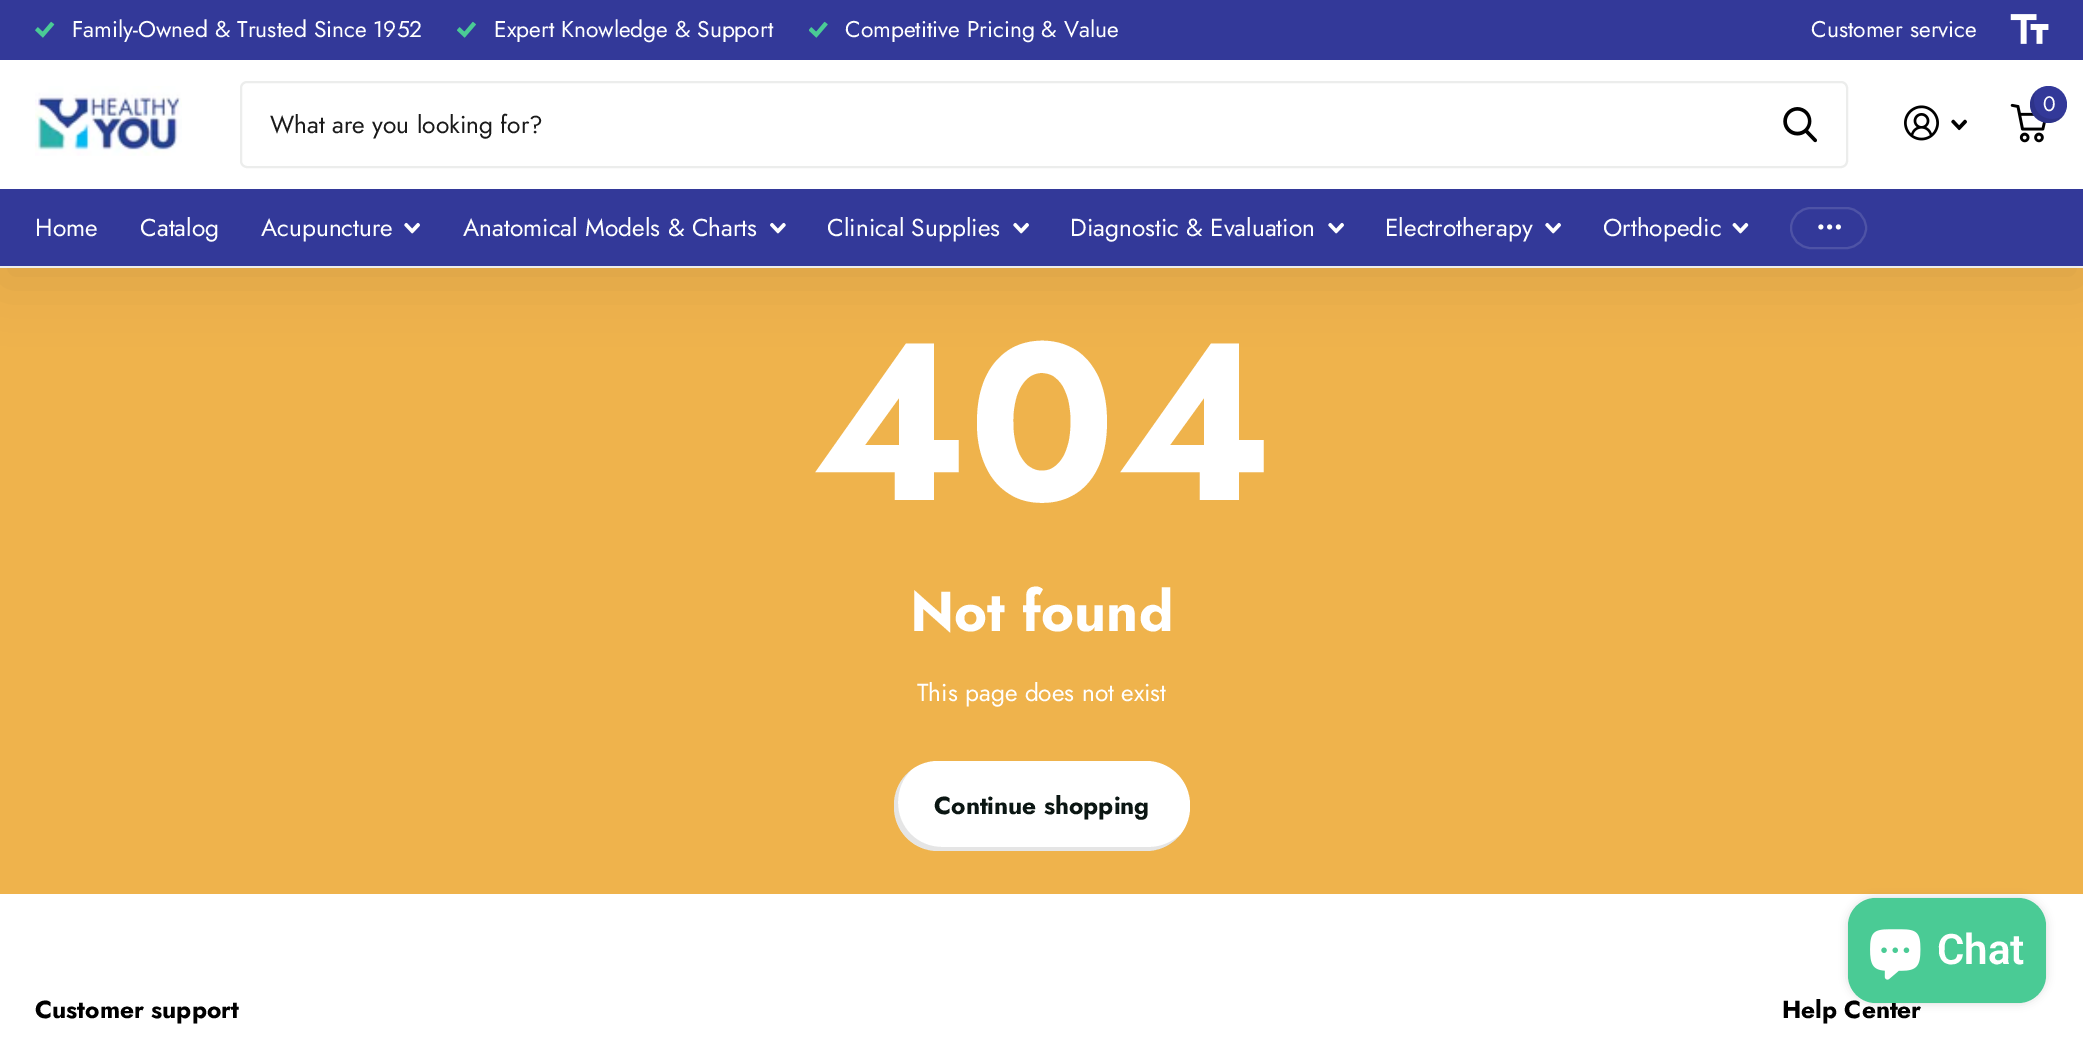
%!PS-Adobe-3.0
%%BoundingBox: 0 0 2083 1039
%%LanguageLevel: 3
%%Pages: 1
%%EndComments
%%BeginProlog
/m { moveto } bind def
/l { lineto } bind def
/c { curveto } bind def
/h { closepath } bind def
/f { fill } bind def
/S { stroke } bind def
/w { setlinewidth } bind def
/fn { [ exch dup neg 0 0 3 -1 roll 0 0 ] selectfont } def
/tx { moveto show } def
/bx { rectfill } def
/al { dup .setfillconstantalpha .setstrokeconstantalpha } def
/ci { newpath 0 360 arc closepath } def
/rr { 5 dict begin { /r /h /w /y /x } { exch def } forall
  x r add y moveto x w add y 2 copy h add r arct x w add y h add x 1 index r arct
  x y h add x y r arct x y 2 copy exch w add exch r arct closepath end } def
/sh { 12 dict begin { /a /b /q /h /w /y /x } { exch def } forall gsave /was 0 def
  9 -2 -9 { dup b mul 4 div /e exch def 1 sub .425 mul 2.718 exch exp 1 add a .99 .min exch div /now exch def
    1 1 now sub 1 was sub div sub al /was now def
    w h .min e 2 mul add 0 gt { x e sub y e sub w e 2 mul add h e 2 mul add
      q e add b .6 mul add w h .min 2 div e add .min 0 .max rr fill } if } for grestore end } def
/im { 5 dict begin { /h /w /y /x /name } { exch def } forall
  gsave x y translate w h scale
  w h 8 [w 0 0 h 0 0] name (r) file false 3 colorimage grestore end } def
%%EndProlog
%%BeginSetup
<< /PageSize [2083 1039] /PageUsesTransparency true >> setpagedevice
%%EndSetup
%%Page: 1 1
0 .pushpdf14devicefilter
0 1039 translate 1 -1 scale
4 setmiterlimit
0.937 0.702 0.298 setrgbcolor
0 0 2083 1039 bx
0 setgray
0 16 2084 268 0 28 0.07 sh
1 setgray
0 60 2083 129 bx
0.925 0.929 0.925 setrgbcolor
0 266 2083 2 bx
0.2 0.224 0.6 setrgbcolor
0 0 2083 60 bx
(image0.raw) 35 21 20 17 im
/Jost-Regular 22.75 fn
1 setgray
(Family-Owned & Trusted Since 1952) 72 37 tx
(image1.raw) 457 21 19 17 im
(Expert Knowledge & Support) 494 37 tx
(image2.raw) 809 21 19 17 im
(Competitive Pricing & Value) 845 37 tx
(Customer service) 1811 37 tx
(image3.raw) 2010 14 39 30 im
(image4.raw) 35 86 147 70 im
(image5.raw) 1904 105 35 36 im
(image6.raw) 1951 119 16 12 im
(image7.raw) 2010 103 36 40 im
0.2 0.224 0.6 setrgbcolor
2048.5 104.5 18.5 ci f
0.1 al
0 setgray
2064 115 m 2061 117.5 2057 119 2052 119 c 2035.5 119 2030 101 2036.5 90 c 2028.5 97 2028 110 2035.5 117.5 c 2043.5 125.5 2057.5 124.5 2064 115 c h f
/Jost-Regular 21 fn
1 al
1 setgray
(0) 2043 111 tx
0.925 0.929 0.925 setrgbcolor
2 w
241 82 1606 85 6 rr S
/Jost-Regular 24.5 fn
0.102 setgray
(What are you looking for?) 270 133 tx
(image8.raw) 1783 107 34 36 im
0.2 0.224 0.6 setrgbcolor
0 189 2083 77 bx
1 setgray
(Home) 35 236 tx
(Catalog) 140 236 tx
(Acupuncture) 261 236 tx
(image9.raw) 404 222 16 12 im
(Anatomical Models & Charts) 463 236 tx
(image10.raw) 770 222 16 12 im
(Clinical Supplies) 827 236 tx
(image9.raw) 1013 222 16 12 im
(Diagnostic & Evaluation) 1070 236 tx
(image9.raw) 1328 222 16 12 im
(Electrotherapy) 1385 236 tx
(image9.raw) 1545 222 16 12 im
(Orthopedic) 1603 236 tx
(image11.raw) 1732 222 17 12 im
0.306 0.325 0.651 setrgbcolor
1791 208 75 40 20 rr S
(image12.raw) 1818 224 23 6 im
/Jost-Bold 224 fn
1 setgray
(404) 812 500 tx
/Jost-Bold 56 fn
(Not found) 910 631 tx
/Jost-Regular 24.5 fn
(This page does not exist) 917 701 tx
894 761 296 90 44 rr f
0.1 al
0 setgray
911 770 m 901 778 894 791 894 805 c 894 807 l 894 831 914 851 938 851 c 1146 851 l 1160 851 1172 845 1180 835 c 1172 842 1161 847 1150 847 c 942 847 l 917 847 898 827 898 803 c 898 802 l 898 789 903 778 911 770 c h f
/Jost-Bold 24.5 fn
1 al
0.043 0.086 0.075 setrgbcolor
(Continue shopping) 934 814 tx
1 setgray
0 894 2083 145 bx
0 setgray
(Customer support) 35 1018 tx
(Help Center) 1782 1018 tx
1848 898 198 105 28 4.5 0.15 sh
0.29 0.796 0.584 setrgbcolor
1848 898 198 105 28 rr f
(image13.raw) 1870 929 51 51 im
/Roboto-SemiBold 42 fn
1 setgray
(Chat) 1937 964 tx
.poppdf14devicefilter showpage
%%EOF
